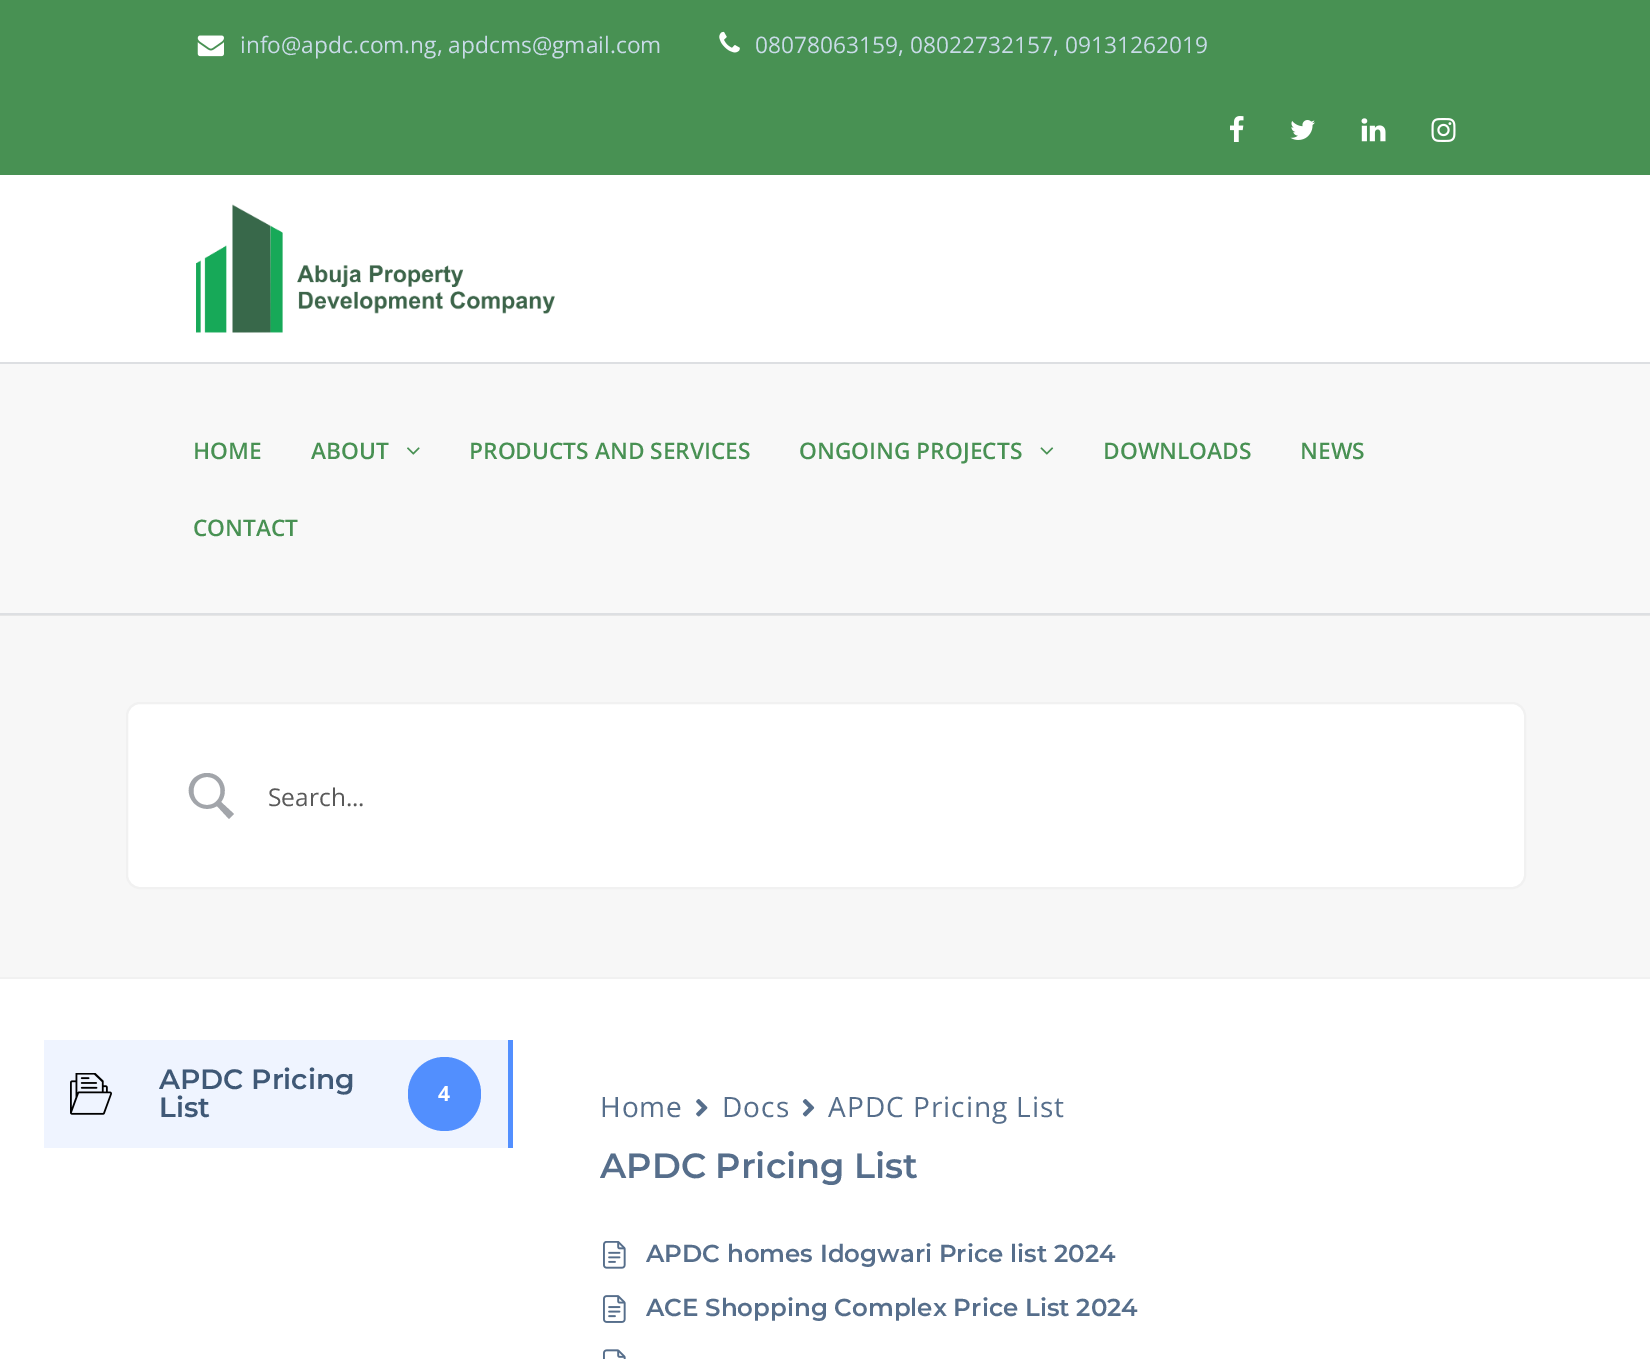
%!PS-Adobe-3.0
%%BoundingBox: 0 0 1650 1359
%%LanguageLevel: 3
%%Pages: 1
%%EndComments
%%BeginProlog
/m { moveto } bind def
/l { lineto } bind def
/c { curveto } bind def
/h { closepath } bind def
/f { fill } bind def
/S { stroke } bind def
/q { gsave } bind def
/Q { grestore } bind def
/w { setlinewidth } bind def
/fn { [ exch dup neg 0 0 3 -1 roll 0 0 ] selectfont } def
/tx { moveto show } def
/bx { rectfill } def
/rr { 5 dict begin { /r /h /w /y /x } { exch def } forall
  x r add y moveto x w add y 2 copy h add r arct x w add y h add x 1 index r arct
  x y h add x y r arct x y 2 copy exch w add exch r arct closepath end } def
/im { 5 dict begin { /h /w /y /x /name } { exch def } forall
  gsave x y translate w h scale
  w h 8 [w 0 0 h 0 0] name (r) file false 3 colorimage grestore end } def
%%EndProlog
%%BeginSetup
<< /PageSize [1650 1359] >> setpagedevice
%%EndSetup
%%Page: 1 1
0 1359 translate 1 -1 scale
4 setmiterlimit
1 setgray
0 0 1650 1359 bx
0.282 0.569 0.325 setrgbcolor
0 0 1650 175 bx
(image0.raw) 197 35 27 22 im
/OpenSans-Regular 22.75 fn
0.788 0.859 0.91 setrgbcolor
(info@apdc.com.ng, apdcms@gmail.com) 240 53 tx
(image1.raw) 719 31 21 22 im
(08078063159, 08022732157, 09131262019) 755 53 tx
(image2.raw) 1230 116 14 26 im
(image3.raw) 1290 120 25 20 im
(image4.raw) 1361 118 25 24 im
(image5.raw) 1431 118 25 24 im
0.902 setgray
0 615 1650 1 bx
(image6.raw) 196 204 359 129 im
0.973 setgray
0 364 1650 249 bx
0.867 0.875 0.886 setrgbcolor
0 362 1650 2 bx
0 613 1650 2 bx
/OpenSans-SemiBold 22.75 fn
0.282 0.569 0.325 setrgbcolor
(HOME) 193 459 tx
(ABOUT) 311 459 tx
(image7.raw) 407 447 13 8 im
(PRODUCTS AND SERVICES) 469 459 tx
(ONGOING PROJECTS) 799 459 tx
(image8.raw) 1040 447 14 8 im
(DOWNLOADS) 1103 459 tx
(NEWS) 1300 459 tx
(CONTACT) 193 536 tx
0.969 setgray
0 616 1650 361 bx
0.945 setgray
0 977 1650 2 bx
1 setgray
127 703 1398 185 13 rr q f Q
0.945 setgray
2 w
S
0.635 0.647 0.667 setrgbcolor
207 773 m 202 773 198 775 194 778 c 179 794 199 817 217 806 c 229 819 l 234 814 l 221 802 l 230 790 222 773 207 773 c h 207 777 m 225 777 225 805 207 805 c 189 805 189 777 207 777 c h f
/OpenSans-Regular 24.5 fn
0.349 setgray
(Search...) 268 806 tx
0.937 0.957 1 setrgbcolor
44 1040 464 108 bx
0.322 0.561 1 setrgbcolor
508 1040 5 108 bx
(image9.raw) 70 1073 42 42 im
/Montserrat-SemiBold 28 fn
0.247 0.345 0.463 setrgbcolor
(APDC Pricing) 159 1089 tx
(List) 159 1117 tx
0.322 0.561 0.996 setrgbcolor
408 1057 73 74 36.5 rr f
/OpenSans-Bold 21 fn
1 setgray
(4) 438 1101 tx
/OpenSans-Regular 28 fn
0.337 0.431 0.545 setrgbcolor
600 1117 m 1 0 (Home) ashow
(image10.raw) 696 1099 12 18 im
722 1117 m 1 0 (Docs) ashow
(image11.raw) 802 1099 13 18 im
828 1117 m 1 0 (APDC Pricing List) ashow
/Montserrat-SemiBold 35 fn
(APDC Pricing List) 600 1178 tx
(image12.raw) 603 1241 23 28 im
/Montserrat-SemiBold 24.5 fn
(APDC homes Idogwari Price list 2024) 646 1262 tx
(image13.raw) 603 1295 23 28 im
(ACE Shopping Complex Price List 2024) 646 1316 tx
(image14.raw) 603 1349 23 10 im
showpage
%%EOF
